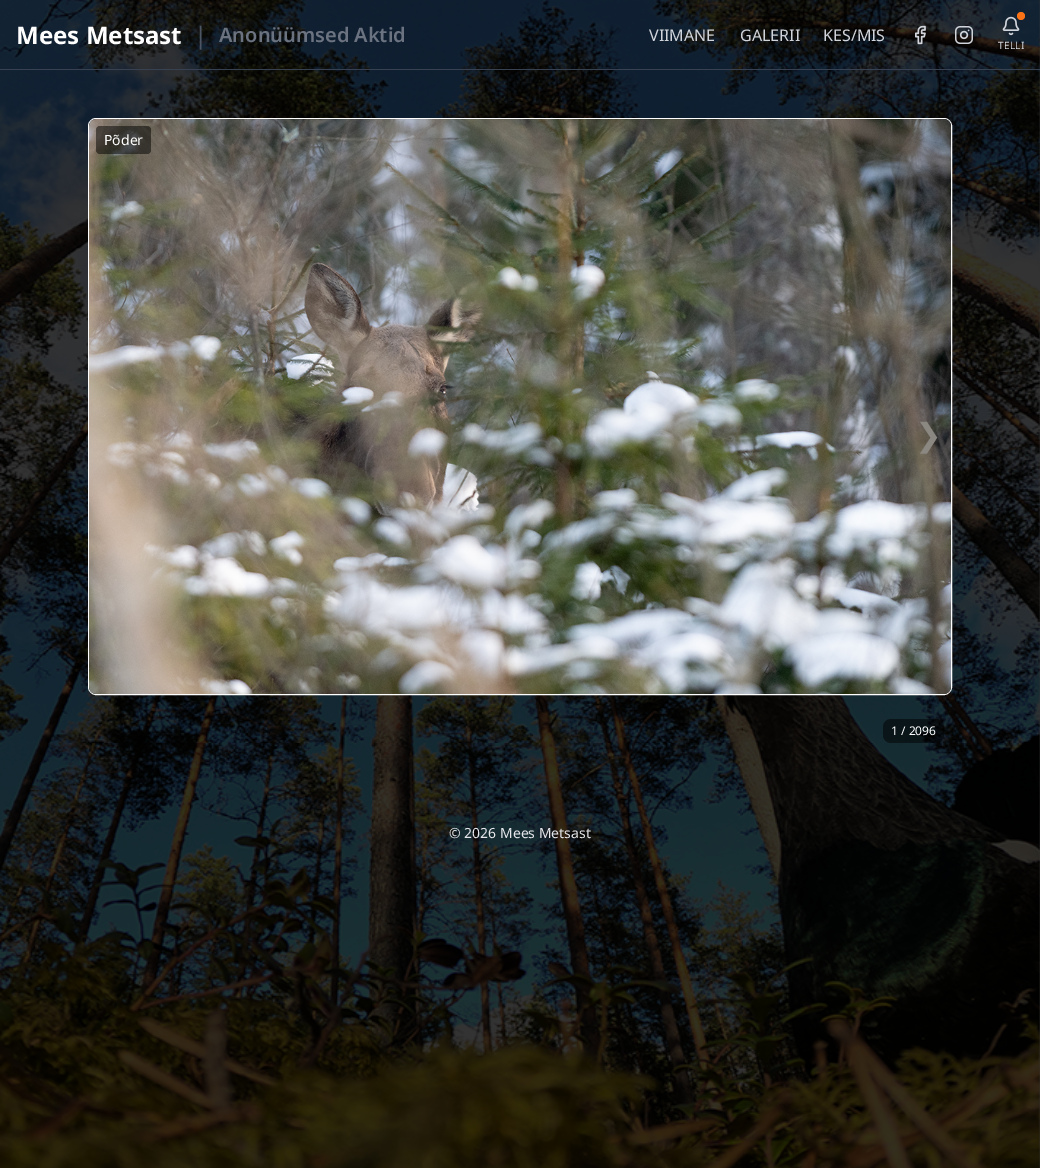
%!PS-Adobe-3.0
%%BoundingBox: 0 0 1040 1168
%%LanguageLevel: 3
%%Pages: 1
%%EndComments
%%BeginProlog
/m { moveto } bind def
/f { fill } bind def
/S { stroke } bind def
/fn { [ exch dup neg 0 0 3 -1 roll 0 0 ] selectfont } def
/tx { moveto show } def
/bx { rectfill } def
/al { dup .setfillconstantalpha .setstrokeconstantalpha } def
/ci { newpath 0 360 arc closepath } def
/rr { 5 dict begin { /r /h /w /y /x } { exch def } forall
  x r add y moveto x w add y 2 copy h add r arct x w add y h add x 1 index r arct
  x y h add x y r arct x y 2 copy exch w add exch r arct closepath end } def
/im { 5 dict begin { /h /w /y /x /name } { exch def } forall
  gsave x y translate w h scale
  w h 8 [w 0 0 h 0 0] name (r) file false 3 colorimage grestore end } def
%%EndProlog
%%BeginSetup
<< /PageSize [1040 1168] /PageUsesTransparency true >> setpagedevice
%%EndSetup
%%Page: 1 1
0 .pushpdf14devicefilter
0 1168 translate 1 -1 scale
4 setmiterlimit
1 setgray
0 0 1040 1168 bx
(image0.raw) 0 0 1040 1168 im
0.216 0.255 0.318 setrgbcolor
0 69 1040 1 bx
/NotoSans-Bold 24 fn
1 setgray
(Mees Metsast) 16 44 tx
/NotoSans-Regular 24 fn
0.294 0.333 0.388 setrgbcolor
(|) 194 44 tx
/NotoSans-SemiBold 20 fn
0.42 0.447 0.502 setrgbcolor
(Anonüümsed Aktid) 219 42 tx
/NotoSans-Regular 16 fn
0.82 0.835 0.859 setrgbcolor
(VIIMANE) 649 41 tx
(GALERII) 740 41 tx
(KES/MIS) 823 41 tx
(image1.raw) 915 25 11 20 im
(image2.raw) 955 26 18 18 im
(image3.raw) 1002 16 18 20 im
0.976 0.451 0.086 setrgbcolor
1021 16 4 ci f
/NotoSans-Regular 10 fn
0.82 0.835 0.859 setrgbcolor
998 49 m 0.25 0 (TELLI) ashow
1 setgray
88.5 118.5 863 576 7.5 rr S
(image4.raw) 89 119 862 575 im
0.5 al
0 setgray
96 126 55 28 4 rr f
/NotoSans-Regular 14 fn
1 al
1 setgray
(Põder) 104 145 tx
0.5 al
0 setgray
883 719 61 24 8 rr f
/NotoSans-Regular 12 fn
1 al
1 setgray
(1 / 2096) 891 735 tx
/DejaVuSans-Regular 32 fn
0.545 0.529 0.506 setrgbcolor
(❯) 915 446 tx
/NotoSans-Regular 14 fn
0.898 0.906 0.922 setrgbcolor
(© 2026 Mees Metsast) 449 838 tx
.poppdf14devicefilter showpage
%%EOF
